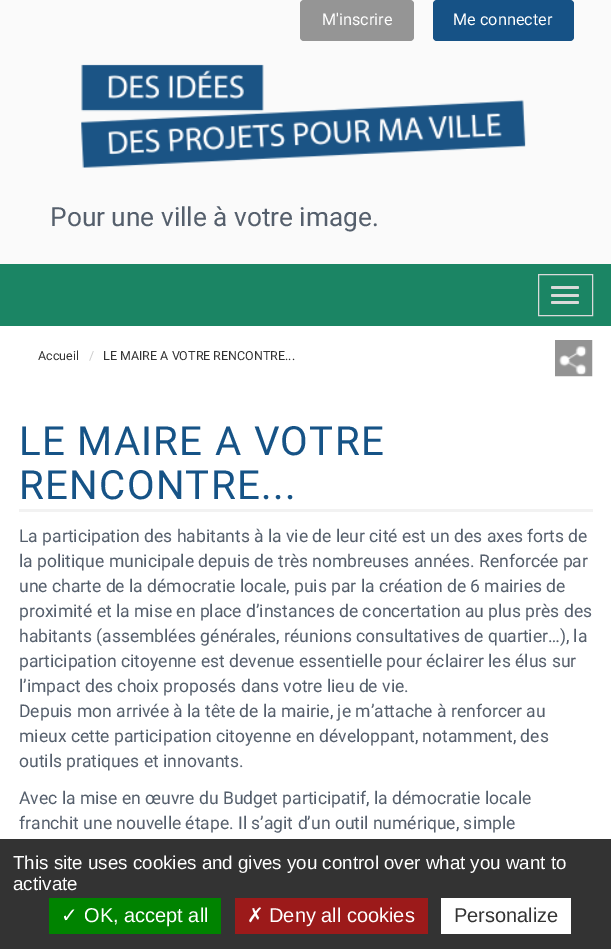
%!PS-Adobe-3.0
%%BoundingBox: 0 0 611 949
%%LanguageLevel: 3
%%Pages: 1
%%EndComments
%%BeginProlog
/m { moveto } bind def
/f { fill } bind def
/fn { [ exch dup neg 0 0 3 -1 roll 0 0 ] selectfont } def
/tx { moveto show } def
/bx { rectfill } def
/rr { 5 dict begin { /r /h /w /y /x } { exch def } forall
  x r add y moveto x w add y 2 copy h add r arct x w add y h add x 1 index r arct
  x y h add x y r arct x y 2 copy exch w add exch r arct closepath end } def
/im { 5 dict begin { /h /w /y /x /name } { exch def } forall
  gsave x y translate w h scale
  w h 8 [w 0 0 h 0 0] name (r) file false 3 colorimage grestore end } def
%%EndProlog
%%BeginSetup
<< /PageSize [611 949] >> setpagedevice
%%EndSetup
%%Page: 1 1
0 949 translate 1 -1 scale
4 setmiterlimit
1 setgray
0 0 611 949 bx
0.98 setgray
0 0 611 264 bx
0.584 setgray
300 0 114 41 4 rr f
/Roboto-Regular 16.25 fn
1 setgray
(M'inscrire) 322 25 tx
0.086 0.322 0.525 setrgbcolor
433 0 141 41 4 rr f
1 setgray
(Me connecter) 453 25 tx
(image0.raw) 81 64 445 104 im
/Roboto-Regular 26.25 fn
0.333 0.373 0.424 setrgbcolor
(Pour une ville à votre image.) 50 226 tx
0.106 0.522 0.392 setrgbcolor
0 264 611 62 bx
0.855 setgray
538.5 274.5 54 41 rectstroke
551 286 28 3 1.5 rr f
551 294 28 3 1.5 rr f
551 301 28 3 1.5 rr f
/Roboto-Regular 12.5 fn
0.2 setgray
(Accueil) 38 360 tx
0.8 setgray
(/) 89 360 tx
0.2 setgray
(LE MAIRE A VOTRE RENCONTRE...) 103 360 tx
(image1.raw) 555 340 38 37 im
0.949 setgray
19 509 574 3 bx
/Roboto-Regular 40.25 fn
0.086 0.325 0.525 setrgbcolor
19 455 m 1.25 0 (LE MAIRE A VOTRE) ashow
19 499 m 1.25 0 (RENCONTRE...) ashow
/Roboto-Regular 17.5 fn
0.333 0.373 0.424 setrgbcolor
(La participation des habitants à la vie de leur cité est un des axes forts de) 19 542 tx
(la politique municipale depuis de très nombreuses années. Renforcée par) 19 567 tx
(une charte de la démocratie locale, puis par la création de 6 mairies de) 19 592 tx
(proximité et la mise en place d’instances de concertation au plus près des) 19 617 tx
(habitants \(assemblées générales, réunions consultatives de quartier…\), la) 19 642 tx
(participation citoyenne est devenue essentielle pour éclairer les élus sur) 19 667 tx
(l’impact des choix proposés dans votre lieu de vie.) 19 692 tx
(Depuis mon arrivée à la tête de la mairie, je m’attache à renforcer au) 19 717 tx
(mieux cette participation citoyenne en développant, notamment, des) 19 742 tx
(outils pratiques et innovants.) 19 767 tx
(Avec la mise en œuvre du Budget participatif, la démocratie locale) 19 804 tx
(franchit une nouvelle étape. Il s’agit d’un outil numérique, simple) 19 829 tx
0.2 setgray
0 839 611 110 bx
/LiberationSans-Regular 18.75 fn
1 setgray
(This site uses cookies and gives you control over what you want to) 13 869 tx
(activate) 13 890 tx
0 0.514 0 setrgbcolor
49 898 172 36 bx
/DejaVuSans-Regular 20 fn
1 setgray
(✓) 61 922 tx
/LiberationSans-Regular 20 fn
(OK, accept all) 84 922 tx
0.612 0.102 0.102 setrgbcolor
235 898 193 36 bx
/DejaVuSans-Regular 20 fn
1 setgray
(✗) 247 922 tx
/LiberationSans-Regular 20 fn
(Deny all cookies) 269 922 tx
441 898 130 36 bx
0.2 setgray
(Personalize) 454 922 tx
showpage
%%EOF
